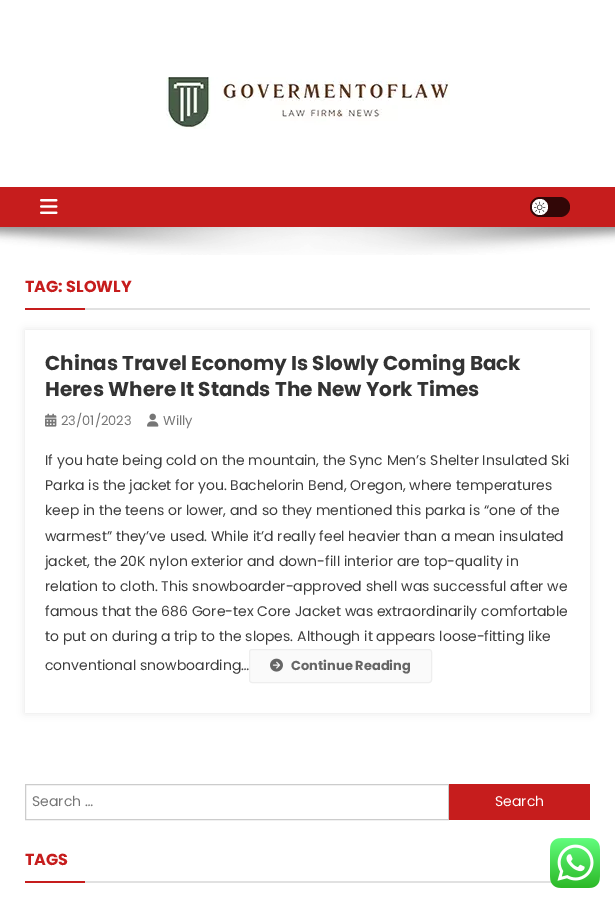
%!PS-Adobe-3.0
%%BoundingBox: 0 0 615 903
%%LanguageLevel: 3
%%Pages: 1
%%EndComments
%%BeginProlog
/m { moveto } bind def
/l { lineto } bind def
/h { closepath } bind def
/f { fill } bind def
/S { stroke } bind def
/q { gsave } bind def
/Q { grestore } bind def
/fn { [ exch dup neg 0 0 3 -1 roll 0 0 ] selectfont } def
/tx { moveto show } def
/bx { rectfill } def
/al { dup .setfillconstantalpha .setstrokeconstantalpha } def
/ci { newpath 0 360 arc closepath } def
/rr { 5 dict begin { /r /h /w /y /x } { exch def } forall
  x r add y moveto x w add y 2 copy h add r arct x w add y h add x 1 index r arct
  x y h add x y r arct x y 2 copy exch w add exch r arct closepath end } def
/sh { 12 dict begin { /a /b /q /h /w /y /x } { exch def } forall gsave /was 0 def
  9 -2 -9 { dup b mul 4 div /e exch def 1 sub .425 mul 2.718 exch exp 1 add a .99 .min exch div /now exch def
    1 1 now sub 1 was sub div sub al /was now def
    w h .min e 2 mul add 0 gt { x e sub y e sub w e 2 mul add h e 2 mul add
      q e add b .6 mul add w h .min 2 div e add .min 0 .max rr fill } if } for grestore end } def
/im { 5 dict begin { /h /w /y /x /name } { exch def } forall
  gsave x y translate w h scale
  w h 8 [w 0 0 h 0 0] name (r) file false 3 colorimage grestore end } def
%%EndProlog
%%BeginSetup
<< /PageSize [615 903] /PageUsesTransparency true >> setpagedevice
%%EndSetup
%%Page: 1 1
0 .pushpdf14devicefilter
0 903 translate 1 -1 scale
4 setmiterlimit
1 setgray
0 0 615 903 bx
(image0.raw) 166 77 284 52 im
0.776 0.114 0.114 setrgbcolor
0 187 615 40 bx
(image1.raw) 40 199 18 15 im
0.196 0.027 0.027 setrgbcolor
530 197 40 20 10 rr f
1 setgray
540 207 8 ci f
(image2.raw) 534 201 12 12 im
(image3.raw) 0 227 615 28 im
0.882 setgray
85 308 505 2 bx
/Poppins-Bold 16 fn
0.776 0.114 0.114 setrgbcolor
(TAG: SLOWLY) 25 292 tx
25 308 60 2 bx
q
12 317 m 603 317 l 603 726 l 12 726 l h 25 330 m 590 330 l 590 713 l 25 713 l h eoclip newpath
0 setgray
25 330 565 383 0 4 0.1 sh
Q
/Poppins-Bold 20 fn
0.2 setgray
(Chinas Travel Economy Is Slowly Coming Back) 45 370 tx
(Heres Where It Stands The New York Times) 45 396 tx
(image4.raw) 45 413 12 14 im
/Poppins-Regular 13 fn
0.463 setgray
(23/01/2023) 61 425 tx
(image5.raw) 147 413 12 14 im
(Willy) 163 425 tx
/Poppins-Regular 14 fn
0.239 setgray
(If you hate being cold on the mountain, the Sync Men’s Shelter Insulated Ski) 45 465 tx
(Parka is the jacket for you. Bachelorin Bend, Oregon, where temperatures) 45 490 tx
(keep in the teens or lower, and so they mentioned this parka is “one of the) 45 515 tx
(warmest” they’ve used. While it’d really feel heavier than a mean insulated) 45 541 tx
(jacket, the 20K nylon exterior and down-fill interior are top-quality in) 45 566 tx
(relation to cloth. This snowboarder-approved shell was successful after we) 45 591 tx
(famous that the 686 Gore-tex Core Jacket was extraordinarily comfortable) 45 616 tx
(to put on during a trip to the slopes. Although it appears loose-fitting like) 45 641 tx
(conventional snowboarding…) 45 670 tx
0.98 setgray
249.5 649.5 182 33 2.5 rr q f Q
0.933 setgray
S
(image6.raw) 270 658 13 14 im
/Poppins-Bold 13 fn
0.4 setgray
(Continue Reading) 291 670 tx
0.8 setgray
25.5 784.5 423 35 rectstroke
/Poppins-Regular 14 fn
0.463 setgray
(Search …) 32 806 tx
0.776 0.114 0.114 setrgbcolor
449 784 141 36 bx
1 setgray
(Search) 495 806 tx
0.882 setgray
85 881 467 2 bx
/Poppins-Bold 16 fn
0.776 0.114 0.114 setrgbcolor
(TAGS) 25 865 tx
25 881 60 2 bx
(image7.raw) 550 838 50 50 im
.poppdf14devicefilter showpage
%%EOF
